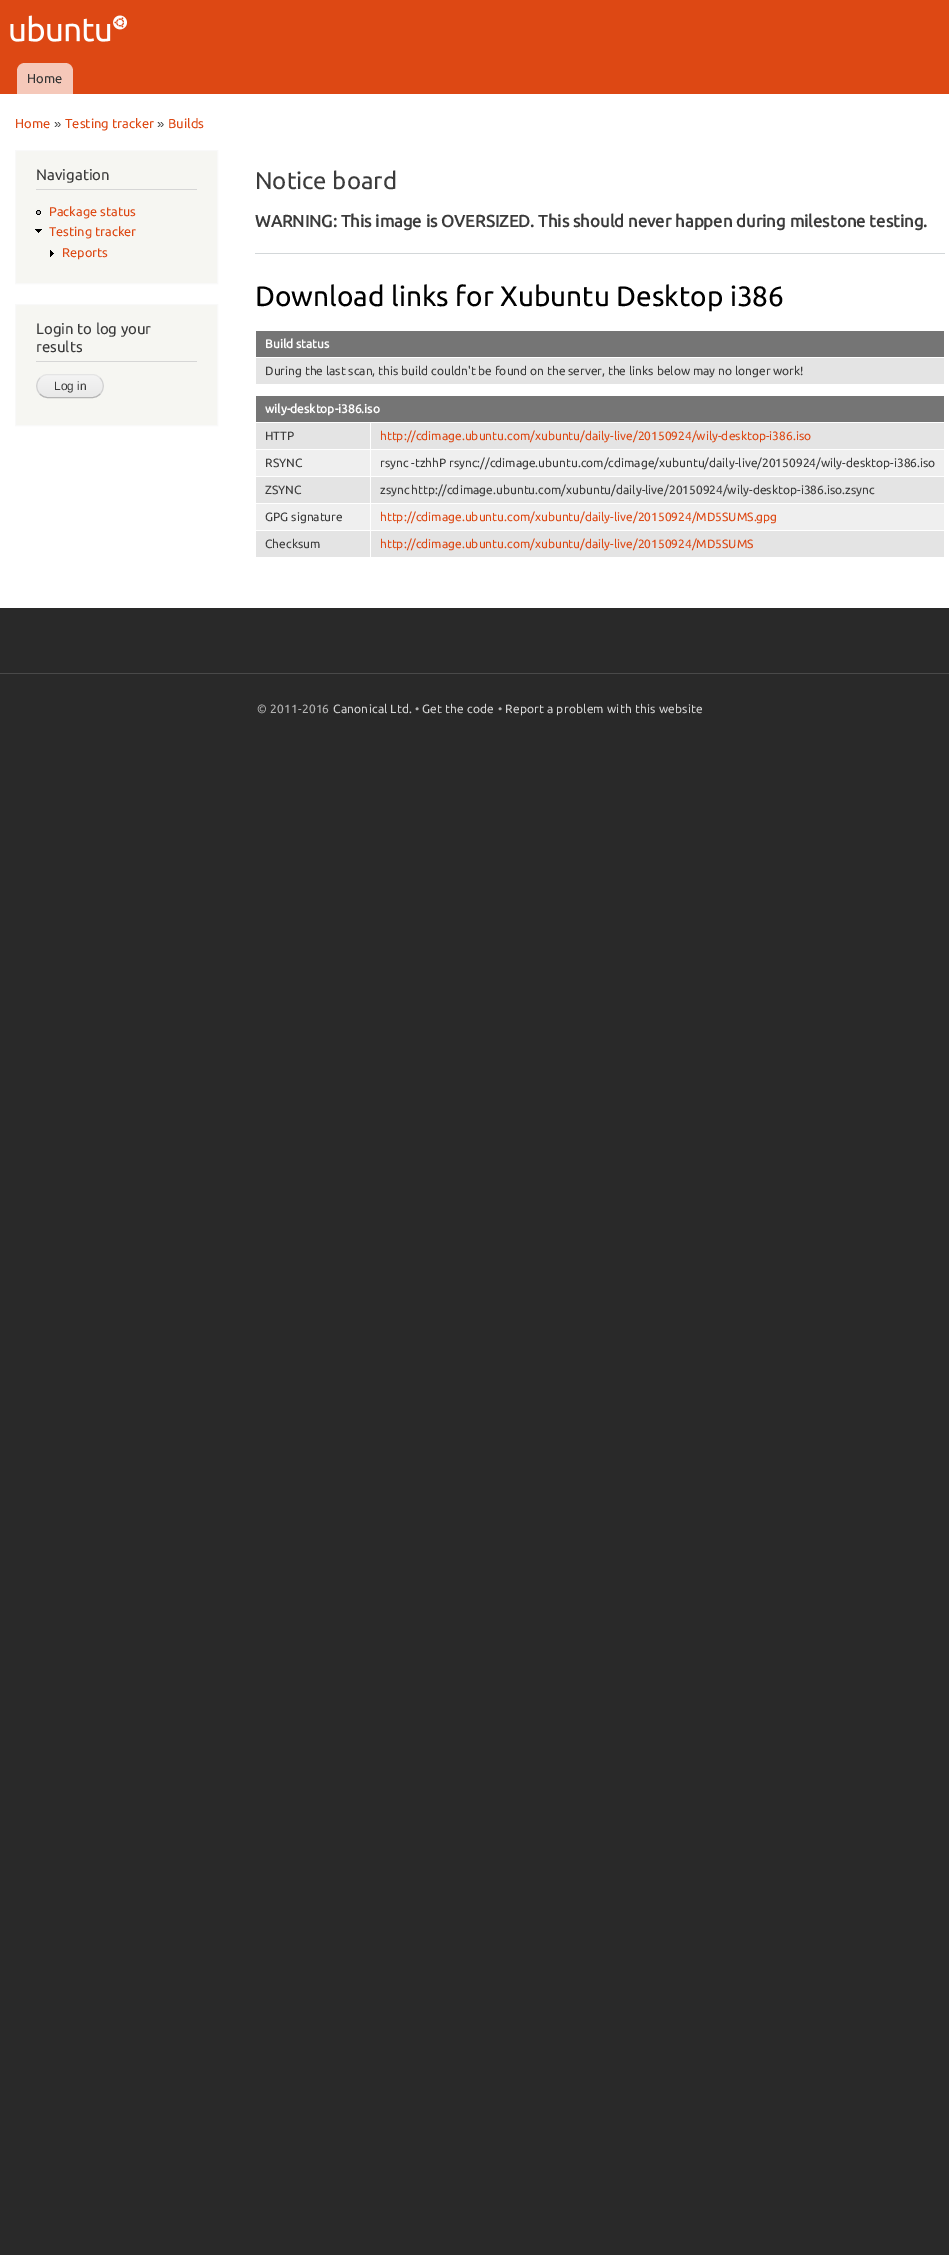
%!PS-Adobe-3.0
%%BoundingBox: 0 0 949 2255
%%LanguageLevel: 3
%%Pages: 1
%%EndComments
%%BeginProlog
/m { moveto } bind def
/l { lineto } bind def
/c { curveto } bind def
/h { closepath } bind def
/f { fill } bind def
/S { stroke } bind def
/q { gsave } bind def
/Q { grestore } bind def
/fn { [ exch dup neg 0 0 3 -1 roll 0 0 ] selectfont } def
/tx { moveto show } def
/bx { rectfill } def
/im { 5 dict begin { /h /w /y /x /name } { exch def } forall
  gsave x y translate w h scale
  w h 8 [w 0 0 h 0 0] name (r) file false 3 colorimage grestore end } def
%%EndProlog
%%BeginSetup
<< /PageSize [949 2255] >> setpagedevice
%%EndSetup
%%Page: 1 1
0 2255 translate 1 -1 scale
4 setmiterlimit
0.161 setgray
0 0 949 2255 bx
1 setgray
0 94 949 514 bx
0.867 0.282 0.078 setrgbcolor
0 0 949 94 bx
(image0.raw) 10 15 117 27 im
0.961 0.784 0.725 setrgbcolor
25 63 m 65 63 l 69.5 63 73 66.5 73 71 c 73 94 l 17 94 l 17 71 l 17 66.5 20.5 63 25 63 c h f
/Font-Regular 13 fn
0.2 setgray
(Home) 27 83 tx
0.867 0.282 0.075 setrgbcolor
(Home) 15 128 tx
/LiberationSans-Regular 13 fn
0.231 setgray
(») 54 128 tx
/Font-Regular 13 fn
0.867 0.282 0.075 setrgbcolor
(Testing tracker) 65 128 tx
/LiberationSans-Regular 13 fn
0.231 setgray
(») 157 128 tx
/Font-Regular 13 fn
0.867 0.282 0.075 setrgbcolor
(Builds) 168 128 tx
0.965 0.965 0.949 setrgbcolor
15.5 150.5 m 217.5 150.5 l 217.5 283.5 l 15.5 283.5 l h q f Q
0.976 setgray
S
0.839 setgray
36 189 161 1 bx
/Font-Regular 15 fn
0.231 setgray
(Navigation) 36 180 tx
(image1.raw) 36 210 5 5 im
/Font-Regular 12.75 fn
0.867 0.282 0.075 setrgbcolor
(Package status) 49 216 tx
(image2.raw) 35 229 7 4 im
(Testing tracker) 49 236 tx
(image3.raw) 50 250 4 7 im
(Reports) 62 257 tx
0.965 0.965 0.949 setrgbcolor
15.5 304.5 m 217.5 304.5 l 217.5 425.5 l 15.5 425.5 l h q f Q
0.976 setgray
S
0.839 setgray
36 361 161 1 bx
/Font-Regular 15 fn
0.231 setgray
(Login to log your) 36 334 tx
(results) 36 352 tx
(image4.raw) 36 375 68 23 im
0.894 setgray
40 378 m 42 375.5 45 374.5 48 374.5 c 92 374.5 l 95 374.5 98 375.5 100 378 c S
0.824 setgray
100 378 m 104.5 382.5 104.5 389.5 100 394 c S
0.706 setgray
100 394 m 98 396.5 95 397.5 92 397.5 c 48 397.5 l 45 397.5 42 396.5 40 394 c S
0.824 setgray
40 394 m 35.5 389.5 35.5 382.5 40 378 c S
/LiberationSans-Regular 12 fn
0.231 setgray
(Log in) 54 390 tx
0.827 0.843 0.851 setrgbcolor
255 253 690 1 bx
/Font-Regular 24 fn
0.231 setgray
(Notice board) 255 189 tx
/Font-Bold 16.8 fn
(WARNING: This image is OVERSIZED. This should never happen during milestone testing.) 255 227 tx
/Font-Regular 28 fn
0 setgray
(Download links for Xubuntu Desktop i386) 255 306 tx
0.459 setgray
256 331 688 26 bx
/Font-Bold 12 fn
1 setgray
(Build status) 265 348 tx
0.894 setgray
256 358 688 26 bx
/Font-Regular 12 fn
0.231 setgray
(During the last scan, this build couldn't be found on the server, the links below may no longer work!) 265 375 tx
0.459 setgray
256 396 688 26 bx
/Font-Bold 12 fn
1 setgray
(wily-desktop-i386.iso) 265 413 tx
0.894 setgray
256 423 688 26 bx
/Font-Regular 12 fn
0.231 setgray
(HTTP) 265 440 tx
0.867 0.282 0.075 setrgbcolor
(http://cdimage.ubuntu.com/xubuntu/daily-live/20150924/wily-desktop-i386.iso) 380 440 tx
0.937 setgray
256 450 688 26 bx
0.231 setgray
(RSYNC) 265 467 tx
(rsync -tzhhP rsync://cdimage.ubuntu.com/cdimage/xubuntu/daily-live/20150924/wily-desktop-i386.iso) 380 467 tx
0.894 setgray
256 477 688 26 bx
0.231 setgray
(ZSYNC) 265 494 tx
380 494 m -1 0 32 (zsync http://cdimage.ubuntu.com/xubuntu/daily-live/20150924/wily-desktop-i386.iso.zsync) widthshow
0.937 setgray
256 504 688 26 bx
0.231 setgray
(GPG signature) 265 521 tx
0.867 0.282 0.075 setrgbcolor
(http://cdimage.ubuntu.com/xubuntu/daily-live/20150924/MD5SUMS.gpg) 380 521 tx
0.894 setgray
256 531 688 26 bx
0.231 setgray
(Checksum) 265 548 tx
1 setgray
370 422 1 136 bx
0.867 0.282 0.075 setrgbcolor
(http://cdimage.ubuntu.com/xubuntu/daily-live/20150924/MD5SUMS) 380 548 tx
0.286 setgray
0 673 949 1 bx
0.706 setgray
257 713 m 0.2 0 (© 2011-2016) ashow
0.831 setgray
333 713 m 0.2 0 (Canonical Ltd.) ashow
0.706 setgray
415 713 m 0.2 0 (•) ashow
0.831 setgray
422 713 m 0.2 0 (Get the code) ashow
0.706 setgray
498 713 m 0.2 0 (•) ashow
0.831 setgray
505 713 m 0.2 0 (Report a problem with this website) ashow
showpage
%%EOF
